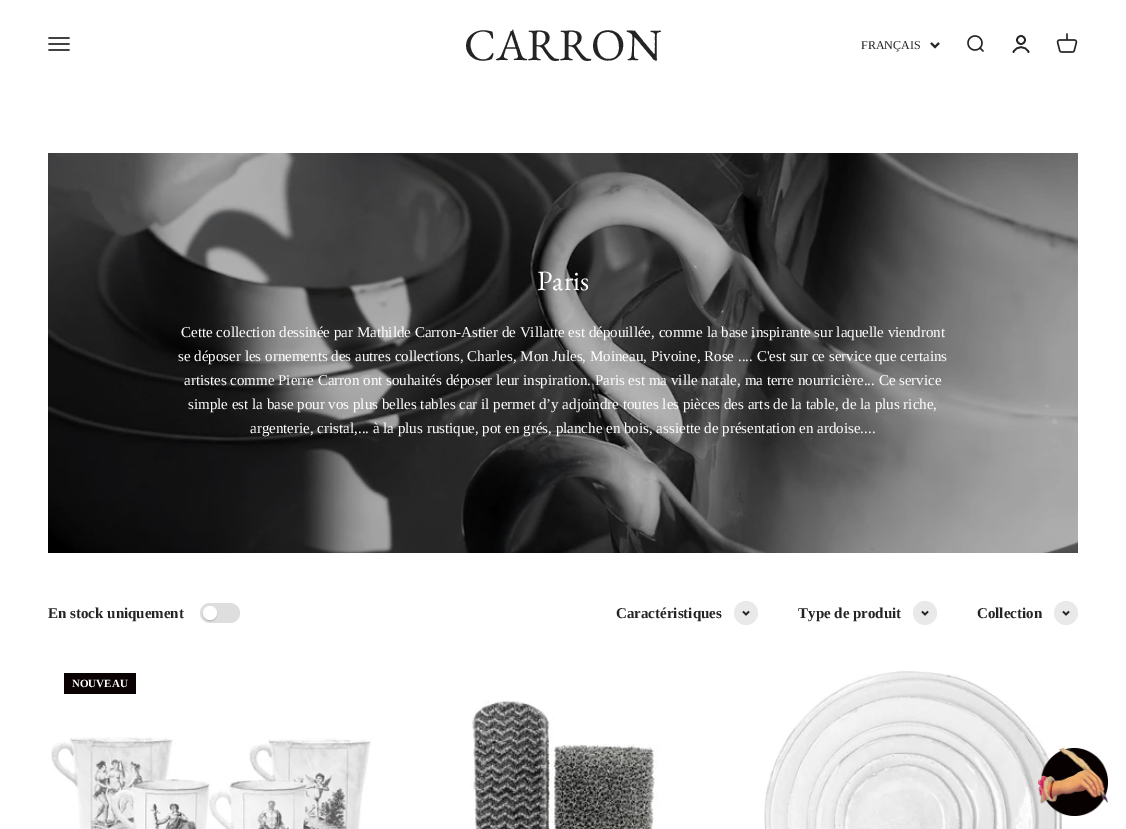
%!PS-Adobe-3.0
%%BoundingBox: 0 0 1126 829
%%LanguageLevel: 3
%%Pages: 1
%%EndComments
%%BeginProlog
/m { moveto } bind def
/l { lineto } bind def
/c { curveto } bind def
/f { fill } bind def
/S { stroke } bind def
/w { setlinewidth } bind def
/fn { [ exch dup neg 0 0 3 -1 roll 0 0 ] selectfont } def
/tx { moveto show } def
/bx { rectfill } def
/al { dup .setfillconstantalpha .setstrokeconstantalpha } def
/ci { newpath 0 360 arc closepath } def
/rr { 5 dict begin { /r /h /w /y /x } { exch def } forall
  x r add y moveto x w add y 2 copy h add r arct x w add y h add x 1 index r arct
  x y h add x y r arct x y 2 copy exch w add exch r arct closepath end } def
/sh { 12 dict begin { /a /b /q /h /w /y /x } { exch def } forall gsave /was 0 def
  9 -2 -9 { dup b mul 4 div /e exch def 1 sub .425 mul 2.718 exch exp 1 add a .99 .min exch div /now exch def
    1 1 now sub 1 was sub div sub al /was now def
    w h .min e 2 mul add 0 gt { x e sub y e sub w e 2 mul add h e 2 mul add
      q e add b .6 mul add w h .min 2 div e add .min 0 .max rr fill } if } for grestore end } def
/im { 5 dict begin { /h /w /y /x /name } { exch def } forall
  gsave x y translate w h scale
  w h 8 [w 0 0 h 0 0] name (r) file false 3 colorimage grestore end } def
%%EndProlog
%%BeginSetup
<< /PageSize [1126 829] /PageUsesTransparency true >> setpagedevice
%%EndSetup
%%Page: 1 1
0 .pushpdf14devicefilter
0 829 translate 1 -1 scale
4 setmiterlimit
1 setgray
0 0 1126 829 bx
(image0.raw) 48 37 22 14 im
/EBGaramond-Regular 45 fn
0.141 setgray
(CARRON) 464 60 tx
/LiberationSerif-Regular 12 fn
(FRANÇAIS) 861 49 tx
2 w
931 43 m 935 47 l 939 43 l S
(image1.raw) 967 35 17 17 im
1.7 w
1021 40 4 ci S
1 setlinecap
1013.5 52 m 1016.5 45.5 1025.5 45.5 1028.5 52 c S
(image2.raw) 1056 33 22 20 im
(image3.raw) 48 153 1030 400 im
/EBGaramond-Regular 28 fn
1 setgray
(Paris) 537 290 tx
/LiberationSerif-Regular 15 fn
(Cette collection dessinée par Mathilde Carron-Astier de Villatte est dépouillée, comme la base inspirante sur laquelle viendront) 181 337 tx
(se déposer les ornements des autres collections, Charles, Mon Jules, Moineau, Pivoine, Rose .... C'est sur ce service que certains) 178 361 tx
(artistes comme Pierre Carron ont souhaités déposer leur inspiration. Paris est ma ville natale, ma terre nourricière... Ce service) 184 385 tx
(simple est la base pour vos plus belles tables car il permet d’y adjoindre toutes les pièces des arts de la table, de la plus riche,) 188 409 tx
(argenterie, cristal,... à la plus rustique, pot en grés, planche en bois, assiette de présentation en ardoise....) 250 433 tx
/LiberationSerif-Bold 15 fn
0.141 setgray
(En stock uniquement) 48 618 tx
0.871 setgray
200 603 40 20 10 rr f
0 setgray
203 607 14 14 7 0.5 0.2 sh
1 setgray
210 613 7 ci f
0.141 setgray
(Caractéristiques) 616 618 tx
0.914 setgray
746 613 12 ci f
0.141 setgray
1.5 w
0 setlinecap
743 611.5 m 746 614.5 l 749 611.5 l S
(Type de produit) 798 618 tx
0.914 setgray
925 613 12 ci f
0.141 setgray
922 611.5 m 925 614.5 l 928 611.5 l S
(Collection) 977 618 tx
0.914 setgray
1066 613 12 ci f
0.141 setgray
1063 611.5 m 1066 614.5 l 1069 611.5 l S
0.039 0.008 0.008 setrgbcolor
64 673 72 21 bx
/LiberationSerif-Bold 11 fn
1 setgray
(NOUVEAU) 72 687 tx
(image4.raw) 51 737 320 92 im
(image5.raw) 764 671 298 158 im
(image6.raw) 470 700 190 129 im
0.043 0.02 0.02 setrgbcolor
1074 778 30 ci f
(image7.raw) 1038 746 70 70 im
.poppdf14devicefilter showpage
%%EOF
